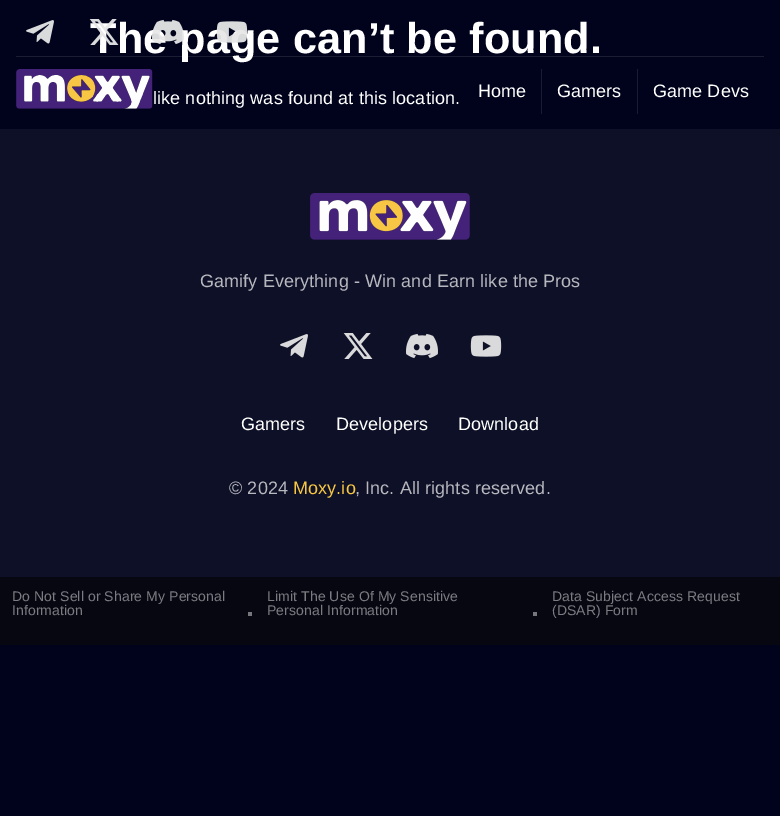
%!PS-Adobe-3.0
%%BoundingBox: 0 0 780 816
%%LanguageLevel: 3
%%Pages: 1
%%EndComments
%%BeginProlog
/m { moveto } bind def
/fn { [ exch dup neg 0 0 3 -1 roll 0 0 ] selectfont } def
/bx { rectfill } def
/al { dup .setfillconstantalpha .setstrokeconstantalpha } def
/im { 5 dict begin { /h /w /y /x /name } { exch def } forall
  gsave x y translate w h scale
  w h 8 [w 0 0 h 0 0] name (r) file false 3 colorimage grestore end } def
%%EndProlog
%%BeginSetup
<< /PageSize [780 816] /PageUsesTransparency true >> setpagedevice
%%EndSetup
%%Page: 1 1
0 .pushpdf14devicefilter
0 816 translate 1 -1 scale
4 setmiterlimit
0.004 0.012 0.11 setrgbcolor
0 0 780 816 bx
/LiberationSans-Bold 43.25 fn
1 setgray
90 53 m 0.1 0 (The page can’t be found.) ashow
/LiberationSans-Regular 18 fn
153 104 m 0.1 0 (like nothing was found at this location.) ashow
0.1 al
16 56 748 1 bx
1 al
(image0.raw) 26 20 28 24 im
(image1.raw) 89 19 30 26 im
(image2.raw) 152 19 32 26 im
(image3.raw) 216 21 32 22 im
(image4.raw) 16 69 137 40 im
0.102 0.11 0.2 setrgbcolor
541 69 1 45 bx
1 setgray
478 97 m 0.1 0 (Home) ashow
0.102 0.11 0.2 setrgbcolor
637 69 1 45 bx
1 setgray
557 97 m 0.1 0 (Gamers) ashow
653 97 m 0.1 0 (Game Devs) ashow
0.055 0.063 0.153 setrgbcolor
0 129 780 448 bx
(image5.raw) 310 193 160 47 im
0.718 0.718 0.745 setrgbcolor
200 287 m 0.1 0 (Gamify Everything - Win and Earn like the Pros) ashow
(image6.raw) 280 334 28 24 im
(image7.raw) 343 333 30 26 im
(image8.raw) 406 333 32 26 im
(image9.raw) 470 335 32 22 im
1 setgray
241 430 m 0.1 0 (Gamers) ashow
336 430 m 0.1 0 (Developers) ashow
458 430 m 0.1 0 (Download) ashow
0.718 0.718 0.745 setrgbcolor
229 494 m 0.1 0 (© 2024) ashow
0.969 0.78 0.259 setrgbcolor
293 494 m 0.1 0 (Moxy.io) ashow
0.718 0.718 0.745 setrgbcolor
355 494 m 0.1 0 (, Inc. All rights reserved.) ashow
0.024 0.027 0.067 setrgbcolor
0 577 780 68 bx
/LiberationSans-Regular 14 fn
0.482 0.486 0.506 setrgbcolor
12 601 m 0.1 0 (Do Not Sell or Share My Personal) ashow
12 615 m 0.1 0 (Information) ashow
0.463 0.467 0.486 setrgbcolor
248 612 4 4 bx
0.482 0.486 0.506 setrgbcolor
267 601 m 0.1 0 (Limit The Use Of My Sensitive) ashow
267 615 m 0.1 0 (Personal Information) ashow
0.463 0.467 0.486 setrgbcolor
533 612 4 4 bx
0.482 0.486 0.506 setrgbcolor
552 601 m 0.1 0 (Data Subject Access Request) ashow
552 615 m 0.1 0 (\(DSAR\) Form) ashow
.poppdf14devicefilter showpage
%%EOF
